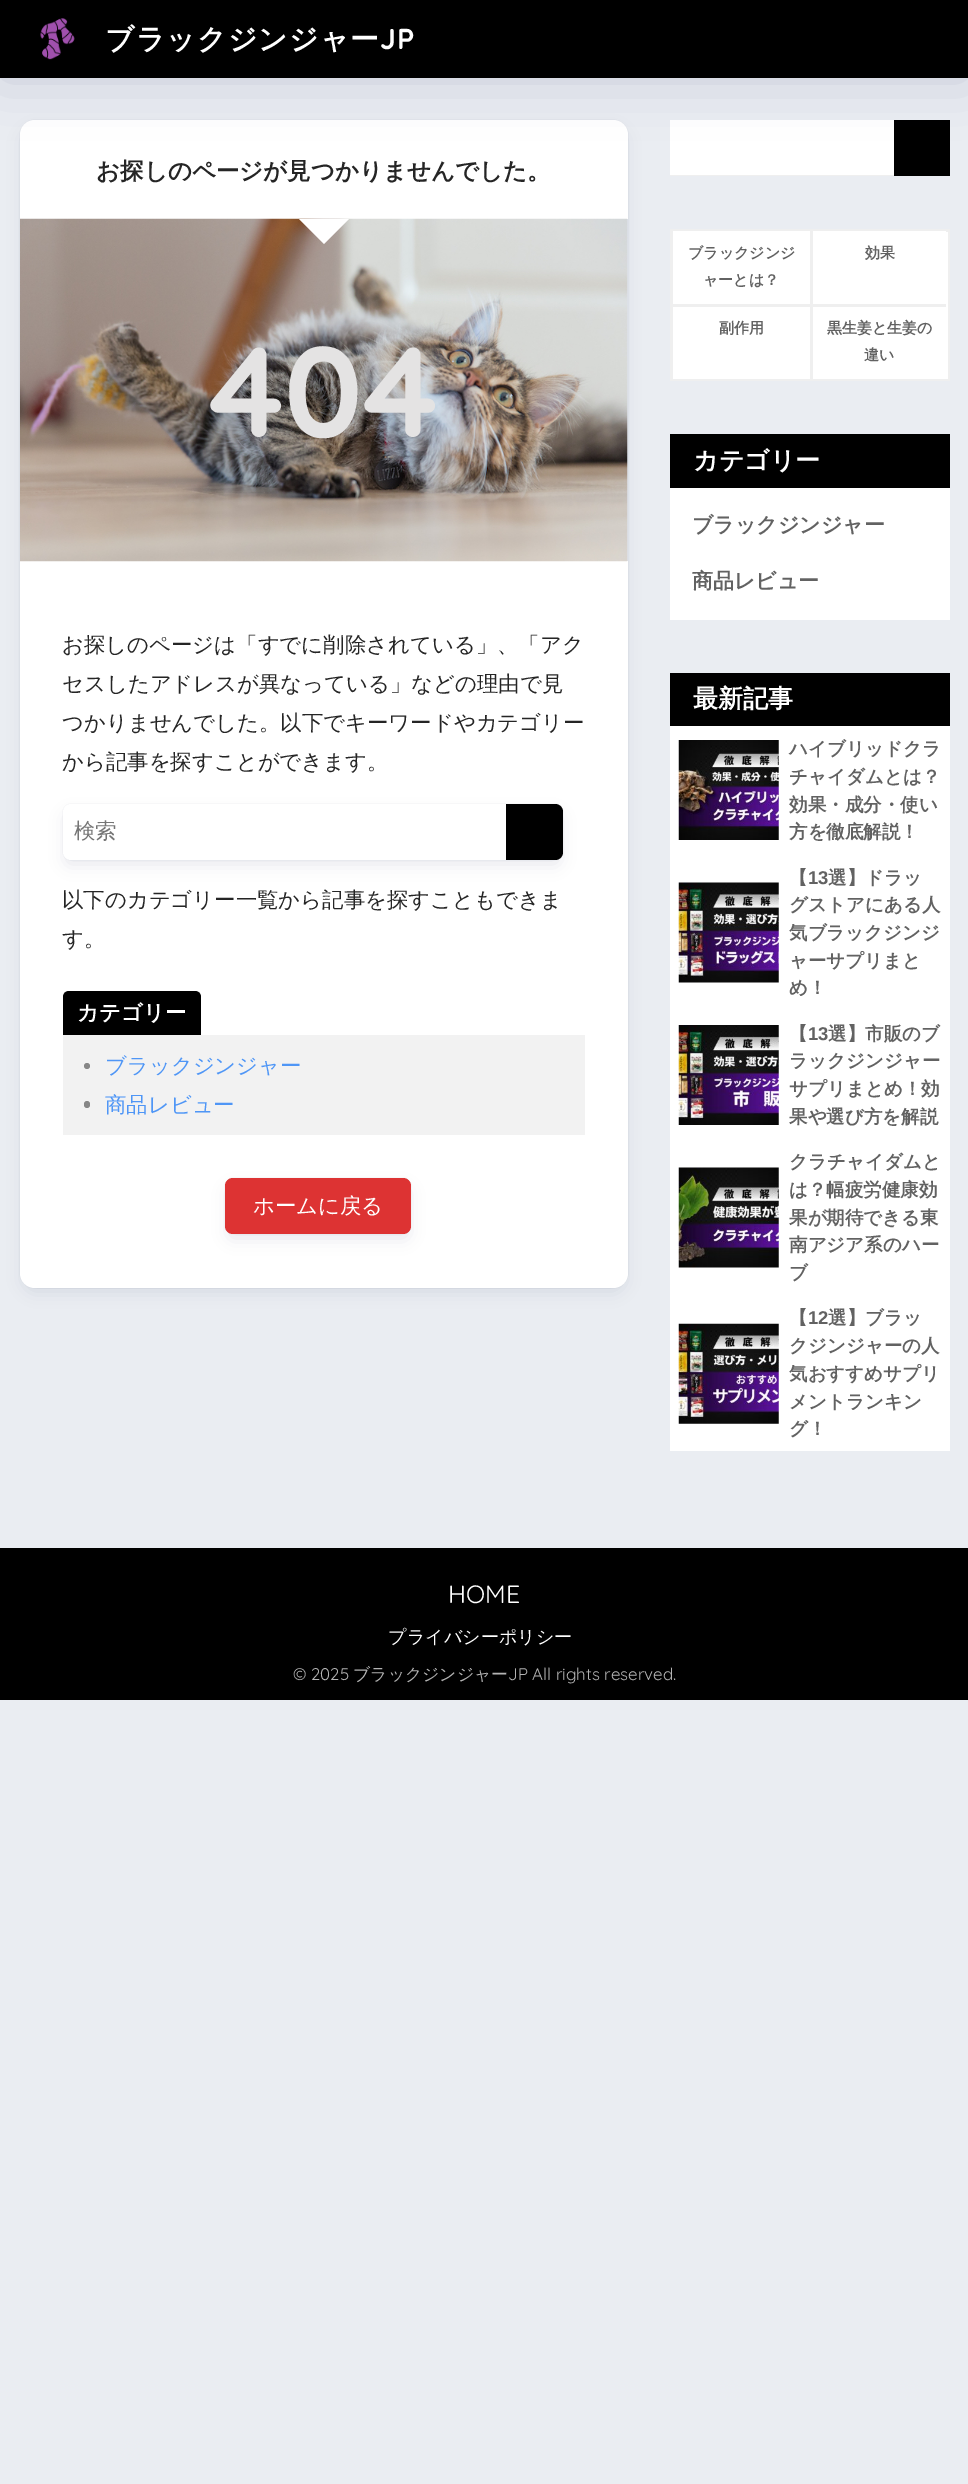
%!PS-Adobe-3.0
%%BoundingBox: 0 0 968 2484
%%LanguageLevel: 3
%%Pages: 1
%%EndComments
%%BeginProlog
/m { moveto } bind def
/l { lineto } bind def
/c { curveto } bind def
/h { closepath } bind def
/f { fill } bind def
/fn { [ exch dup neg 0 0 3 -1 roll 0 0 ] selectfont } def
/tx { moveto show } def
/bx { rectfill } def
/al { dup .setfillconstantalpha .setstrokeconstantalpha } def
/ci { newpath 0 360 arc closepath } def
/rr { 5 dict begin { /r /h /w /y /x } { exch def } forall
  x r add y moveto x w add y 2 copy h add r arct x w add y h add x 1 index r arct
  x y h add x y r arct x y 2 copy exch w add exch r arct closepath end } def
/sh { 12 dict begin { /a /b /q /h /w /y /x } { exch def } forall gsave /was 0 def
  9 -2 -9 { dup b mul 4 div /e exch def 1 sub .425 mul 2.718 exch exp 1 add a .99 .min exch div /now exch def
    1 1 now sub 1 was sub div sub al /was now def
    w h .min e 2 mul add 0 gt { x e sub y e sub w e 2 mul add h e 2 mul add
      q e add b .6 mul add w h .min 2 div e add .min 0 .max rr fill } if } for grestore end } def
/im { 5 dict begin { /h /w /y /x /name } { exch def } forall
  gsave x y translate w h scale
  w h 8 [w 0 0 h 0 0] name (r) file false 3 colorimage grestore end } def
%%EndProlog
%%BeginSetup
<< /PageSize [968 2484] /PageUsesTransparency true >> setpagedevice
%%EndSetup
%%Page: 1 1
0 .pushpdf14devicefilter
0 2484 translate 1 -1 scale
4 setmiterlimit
0.918 0.929 0.949 setrgbcolor
0 0 968 2484 bx
0 0.118 0.392 setrgbcolor
20 120 608 1168 15 0.5 0.1 sh
0 0.047 0.259 setrgbcolor
24 131 600 1160 11 8 0.1 sh
1 setgray
35 120 m 613 120 l 621.5 120 628 126.5 628 135 c 628 219 l 20 219 l 20 135 l 20 126.5 26.5 120 35 120 c h f
670 120 224 55 bx
0 setgray
894 120 56 56 bx
0 0.047 0.259 setrgbcolor
0 0 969 78 0 28 0.15 sh
0 setgray
0 0 968 78 bx
(image0.raw) 40 18 35 42 im
/WenQuanYiZenHei-Bold 28.75 fn
1 setgray
105 49 m 1.25 0 (ブラックジンジャー) ashow
/Quicksand-Bold 28.75 fn
380 49 m 1.25 0 (JP) ashow
/WenQuanYiZenHei-Bold 23.5 fn
0.145 setgray
(お探しのページが見つかりませんでした。) 96 179 tx
1 setgray
20 561 m 628 561 l 628 1273 l 628 1281.5 621.5 1288 613 1288 c 35 1288 l 26.5 1288 20 1281.5 20 1273 c h f
(image1.raw) 20 218 608 344 im
299 219 m 349 219 l 324 244 l h f
/Quicksand-Bold 128 fn
0.894 0.89 0.89 setrgbcolor
(404) 209 437 tx
/WenQuanYiZenHei-Medium 21.4 fn
0.145 setgray
(お探しのページは「すでに削除されている」、「アク) 62 652 tx
(セスしたアドレスが異なっている」などの理由で見) 62 691 tx
(つかりませんでした。以下でキーワードやカテゴリー) 62 730 tx
(から記事を探すことができます。) 62 769 tx
0 0.118 0.392 setrgbcolor
63 804 500 56 8 0.5 0.1 sh
0 0.047 0.259 setrgbcolor
66 815 493 49 4 8 0.1 sh
1 setgray
63 804 500 56 8 rr f
0.459 setgray
(検索) 74 838 tx
0 setgray
506 804 m 555 804 l 559.5 804 563 807.5 563 812 c 563 852 l 563 856.5 559.5 860 555 860 c 506 860 l h f
0.1 al
556 859 3 1 bx
1 al
0.145 setgray
(以下のカテゴリー一覧から記事を探すこともできま) 62 907 tx
(す。) 62 946 tx
0 setgray
69 991 m 195 991 l 198.5 991 201 993.5 201 997 c 201 1035 l 63 1035 l 63 997 l 63 993.5 65.5 991 69 991 c h f
/WenQuanYiZenHei-Bold 21.4 fn
1 setgray
(カテゴリー) 77 1020 tx
0.949 setgray
63 1035 522 100 bx
0.529 setgray
87 1066 3 ci f
/WenQuanYiZenHei-Medium 21.4 fn
0.31 0.588 0.965 setrgbcolor
(ブラックジンジャー) 105 1073 tx
0.529 setgray
84 1101 6 7 3 rr f
0.31 0.588 0.965 setrgbcolor
(商品レビュー) 105 1112 tx
0 0.118 0.392 setrgbcolor
225 1178 186 56 8 0.5 0.1 sh
0 0.047 0.259 setrgbcolor
229 1189 179 49 4 8 0.1 sh
0.867 0.2 0.2 setrgbcolor
225 1178 186 56 8 rr f
1 setgray
(ホームに戻る) 253 1213 tx
0.937 setgray
670 175 224 1 bx
1 setgray
673 232 275 147 bx
0.937 setgray
670 229 280 3 bx
948 231 2 150 bx
670 379 280 2 bx
670 231 3 150 bx
1 setgray
673 231 137 1 bx
/WenQuanYiZenHei-Bold 15 fn
0.384 setgray
(ブラックジンジ) 688 258 tx
(ャーとは？) 703 285 tx
1 setgray
813 231 133 1 bx
0.937 setgray
810 231 3 73 bx
0.384 setgray
(効果) 865 258 tx
0.937 setgray
673 304 273 3 bx
0.384 setgray
(副作用) 719 333 tx
0.937 setgray
810 304 3 75 bx
0.384 setgray
(黒生姜と生姜の) 827 333 tx
(違い) 864 360 tx
0 setgray
670 434 280 54 bx
/WenQuanYiZenHei-Bold 25 fn
1 setgray
(カテゴリー) 693 469 tx
670 488 280 132 bx
/WenQuanYiZenHei-Bold 21 fn
0.384 setgray
(ブラックジンジャー) 692 532 tx
(商品レビュー) 692 588 tx
0 setgray
670 673 280 53 bx
/WenQuanYiZenHei-Bold 25 fn
1 setgray
(最新記事) 693 707 tx
670 726 280 725 bx
(image2.raw) 678 740 101 100 im
/WenQuanYiZenHei-Bold 18.5 fn
0.384 setgray
(ハイブリッドクラ) 789 755 tx
(チャイダムとは？) 789 783 tx
(効果・成分・使い) 789 811 tx
(方を徹底解説！) 789 838 tx
(image3.raw) 678 882 101 101 im
(【) 789 884 tx
/LiberationSans-Bold 18.5 fn
(13) 808 884 tx
/WenQuanYiZenHei-Bold 18.5 fn
(選】ドラッ) 828 884 tx
(グストアにある人) 789 911 tx
(気ブラックジンジ) 789 939 tx
(ャーサプリまと) 789 967 tx
(め！) 789 994 tx
(image4.raw) 678 1025 101 100 im
(【) 789 1040 tx
/LiberationSans-Bold 18.5 fn
(13) 808 1040 tx
/WenQuanYiZenHei-Bold 18.5 fn
(選】市販のブ) 828 1040 tx
(ラックジンジャー) 789 1067 tx
(サプリまとめ！効) 789 1095 tx
(果や選び方を解説) 789 1123 tx
(image5.raw) 678 1167 101 101 im
(クラチャイダムと) 789 1168 tx
(は？幅疲労健康効) 789 1196 tx
(果が期待できる東) 789 1224 tx
(南アジア系のハー) 789 1251 tx
(ブ) 789 1279 tx
(image6.raw) 678 1323 101 101 im
(【) 789 1324 tx
/LiberationSans-Bold 18.5 fn
(12) 808 1324 tx
/WenQuanYiZenHei-Bold 18.5 fn
(選】ブラッ) 828 1324 tx
(クジンジャーの人) 789 1352 tx
(気おすすめサプリ) 789 1380 tx
(メントランキン) 789 1408 tx
(グ！) 789 1435 tx
0 setgray
0 1548 968 152 bx
/Quicksand-Regular 25 fn
1 setgray
(HOME) 448 1603 tx
/WenQuanYiZenHei-Medium 18.1 fn
(プライバシーポリシー) 388 1643 tx
/Quicksand-Regular 16.9 fn
0.702 setgray
(© 2025) 293 1680 tx
/WenQuanYiZenHei-Medium 16.9 fn
(ブラックジンジャー) 353 1680 tx
/Quicksand-Regular 16.9 fn
(JP All rights reserved.) 508 1680 tx
.poppdf14devicefilter showpage
%%EOF
